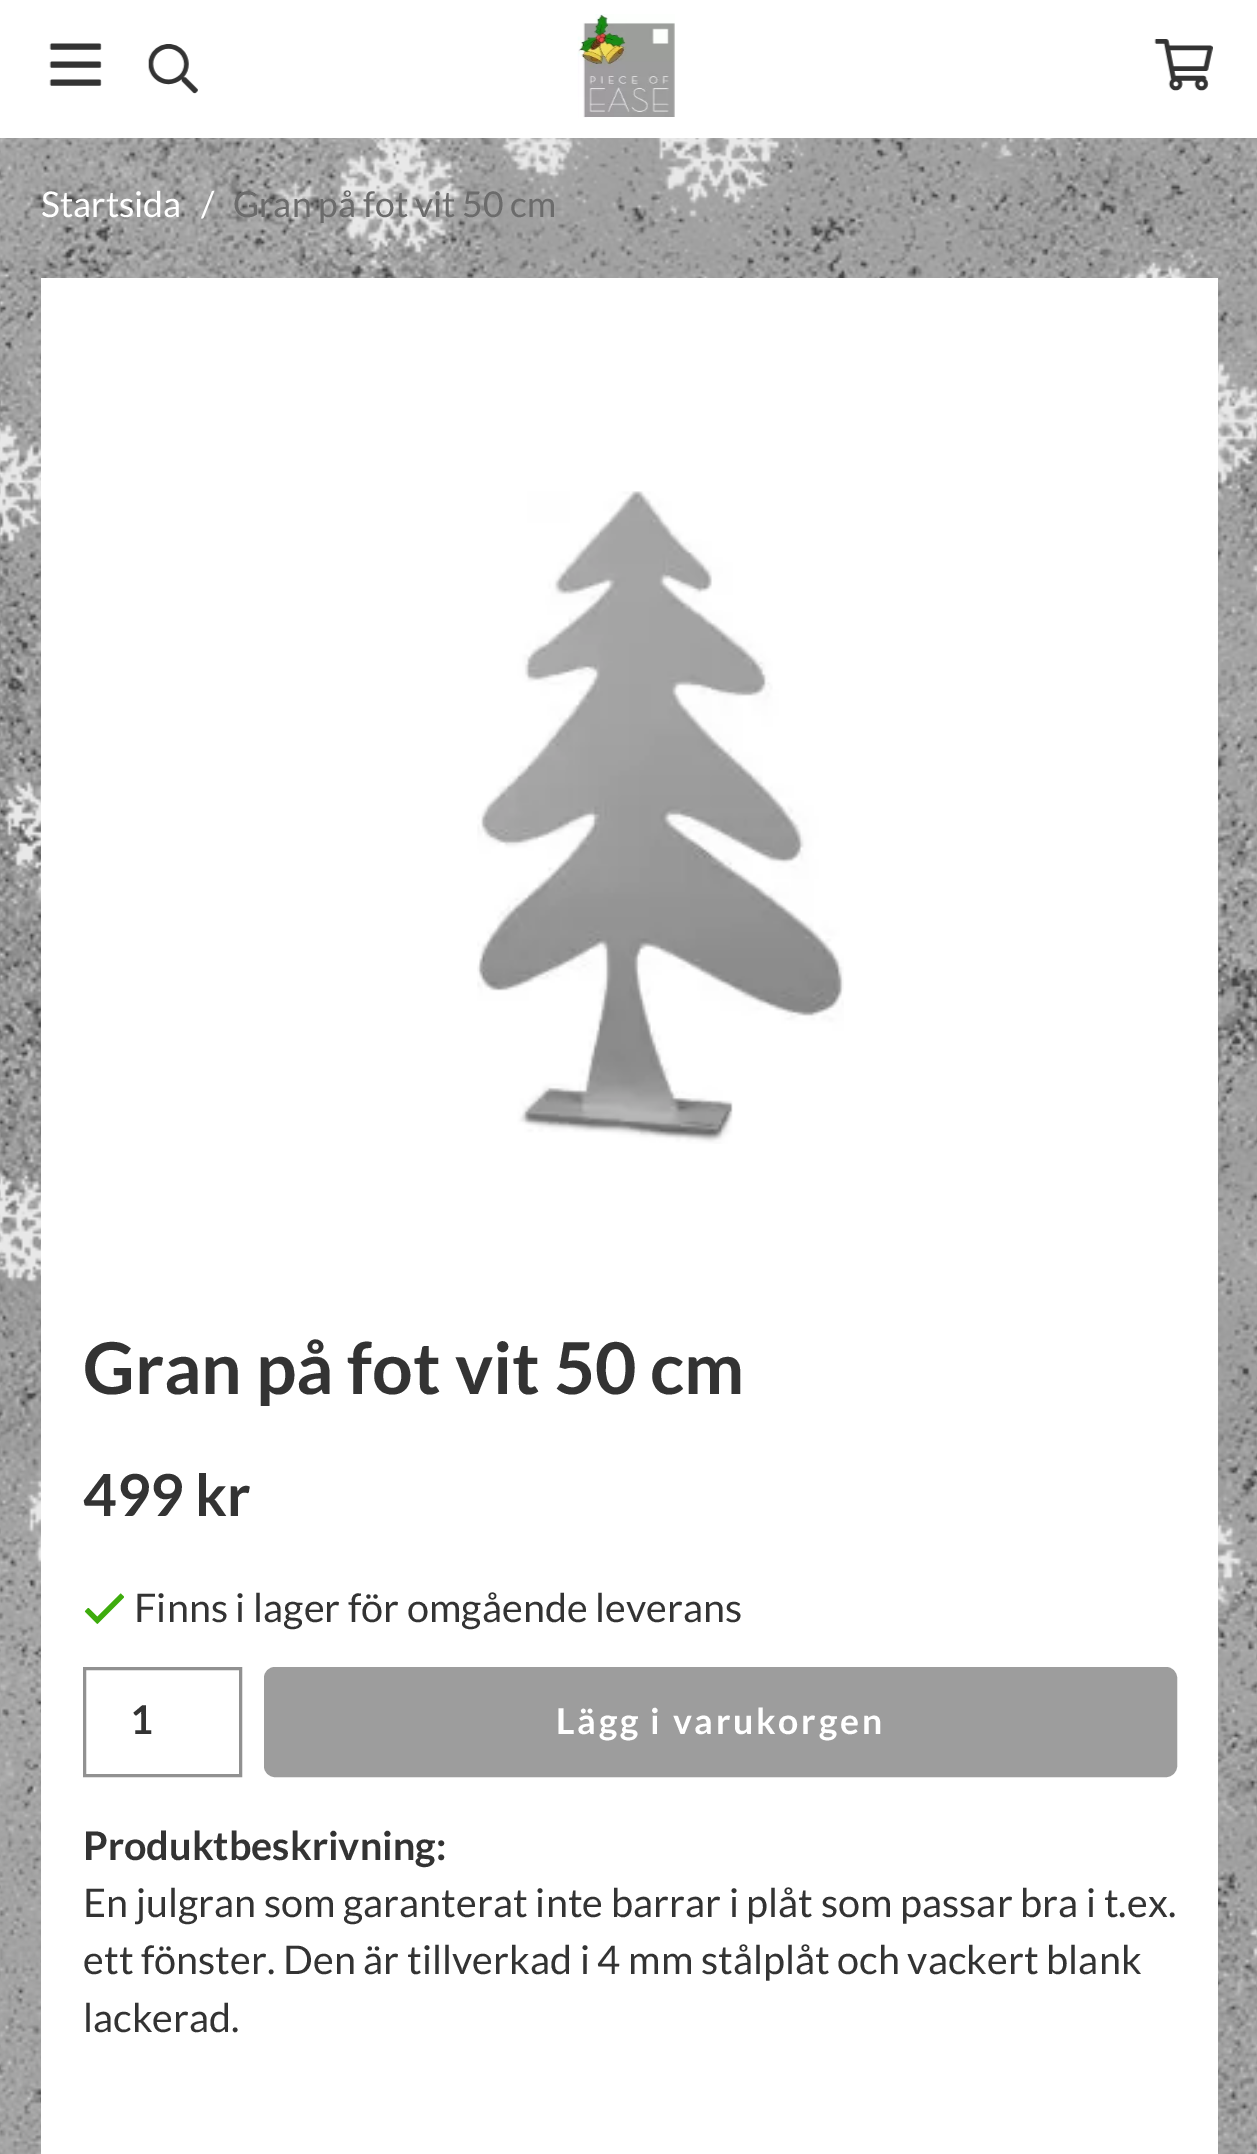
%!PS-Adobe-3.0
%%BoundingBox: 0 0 1257 2154
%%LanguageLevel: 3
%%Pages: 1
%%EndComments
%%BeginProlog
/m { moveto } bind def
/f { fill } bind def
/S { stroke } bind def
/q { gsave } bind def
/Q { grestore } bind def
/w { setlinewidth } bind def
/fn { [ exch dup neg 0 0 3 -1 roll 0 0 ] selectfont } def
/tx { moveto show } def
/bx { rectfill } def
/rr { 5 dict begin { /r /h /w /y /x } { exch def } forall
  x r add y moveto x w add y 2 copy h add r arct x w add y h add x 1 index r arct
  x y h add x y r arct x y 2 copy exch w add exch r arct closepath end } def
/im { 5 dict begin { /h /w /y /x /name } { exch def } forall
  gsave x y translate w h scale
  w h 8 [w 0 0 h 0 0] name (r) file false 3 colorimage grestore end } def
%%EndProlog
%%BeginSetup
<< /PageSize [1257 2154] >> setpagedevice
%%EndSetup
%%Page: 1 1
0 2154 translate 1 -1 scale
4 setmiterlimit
1 setgray
0 0 1257 2154 bx
(image0.raw) 0 138 1257 2016 im
(image1.raw) 49 43 53 43 im
(image2.raw) 148 44 50 50 im
(image3.raw) 577 14 98 104 im
(image4.raw) 1154 39 59 52 im
/Lato-Regular 35.6 fn
(Startsida) 41 217 tx
(/) 201 217 tx
0.42 setgray
(Gran på fot vit 50 cm) 233 217 tx
1 setgray
41 278 1177 1876 bx
(image5.raw) 477 491 367 653 im
/Lato-Bold 71.5 fn
0.2 setgray
(Gran på fot vit 50 cm) 83 1394 tx
/Lato-Bold 58 fn
(499 kr) 83 1516 tx
(image6.raw) 84 1593 40 31 im
/Lato-Regular 39.6 fn
(Finns i lager för omgående leverans) 134 1622 tx
0.569 setgray
3 w
84.5 1668.5 156 107 rectstroke
/Lato-Bold 39.6 fn
0.2 setgray
(1) 130 1734 tx
0.616 setgray
265.5 1668.5 910 107 9.5 rr q f Q
S
/Lato-Bold 35.6 fn
1 setgray
556 1734 m 2.75 0 (Lägg i varukorgen) ashow
/Lato-Bold 39.6 fn
0.2 setgray
(Produktbeskrivning:) 83 1860 tx
/Lato-Regular 39.6 fn
(En julgran som garanterat inte barrar i plåt som passar bra i t.ex.) 83 1917 tx
(ett fönster. Den är tillverkad i 4 mm stålplåt och vackert blank) 83 1974 tx
(lackerad.) 83 2032 tx
showpage
%%EOF
